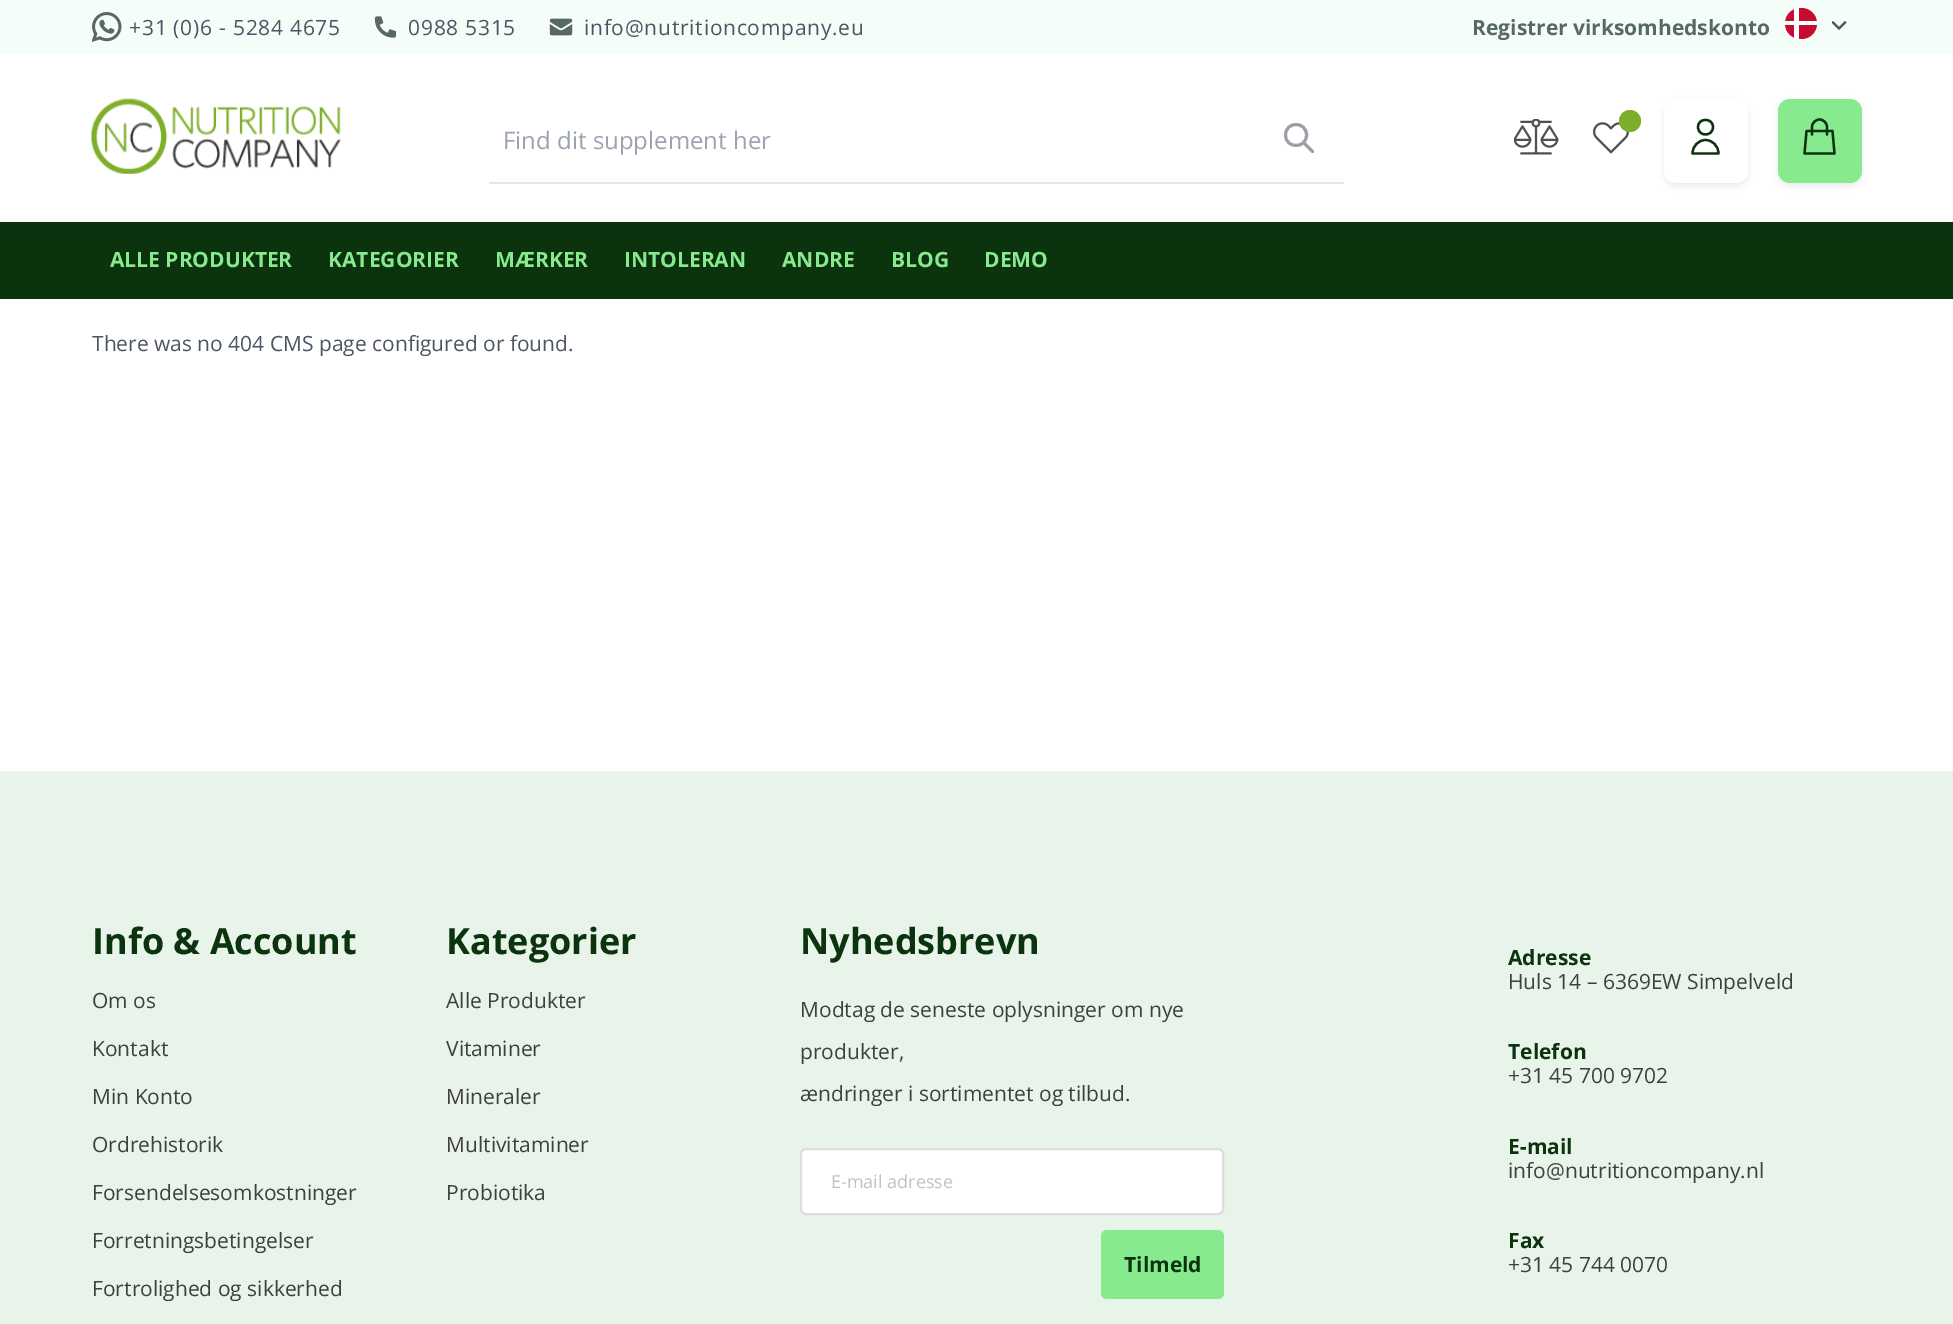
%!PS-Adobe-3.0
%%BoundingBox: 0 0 1953 1324
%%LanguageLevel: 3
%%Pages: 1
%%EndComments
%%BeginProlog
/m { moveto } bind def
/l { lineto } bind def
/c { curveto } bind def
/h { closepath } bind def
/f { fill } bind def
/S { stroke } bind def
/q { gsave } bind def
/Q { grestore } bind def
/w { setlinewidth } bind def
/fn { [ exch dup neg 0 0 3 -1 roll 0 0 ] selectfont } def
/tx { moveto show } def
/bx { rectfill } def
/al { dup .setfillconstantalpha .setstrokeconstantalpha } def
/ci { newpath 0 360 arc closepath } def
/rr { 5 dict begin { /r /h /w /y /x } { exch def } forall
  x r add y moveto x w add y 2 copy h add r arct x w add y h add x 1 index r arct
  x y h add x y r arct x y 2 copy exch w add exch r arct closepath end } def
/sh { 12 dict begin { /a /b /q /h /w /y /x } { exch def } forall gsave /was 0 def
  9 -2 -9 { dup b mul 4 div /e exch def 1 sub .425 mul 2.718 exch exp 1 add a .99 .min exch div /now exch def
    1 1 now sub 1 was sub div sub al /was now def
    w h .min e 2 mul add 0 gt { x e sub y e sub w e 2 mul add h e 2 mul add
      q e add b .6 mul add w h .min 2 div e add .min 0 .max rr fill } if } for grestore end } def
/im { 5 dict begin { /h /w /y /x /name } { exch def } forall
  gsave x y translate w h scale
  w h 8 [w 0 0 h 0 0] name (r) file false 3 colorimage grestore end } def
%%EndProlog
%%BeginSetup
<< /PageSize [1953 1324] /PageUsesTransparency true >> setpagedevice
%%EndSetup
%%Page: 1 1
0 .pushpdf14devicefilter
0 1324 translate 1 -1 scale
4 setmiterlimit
1 setgray
0 0 1953 1324 bx
0.043 0.2 0.055 setrgbcolor
0 222 1953 77 bx
0 setgray
0 0 1953 222 0 15 0.08 sh
1 setgray
0 54 1953 168 bx
0.961 0.992 0.976 setrgbcolor
0 0 1953 54 bx
(image0.raw) 92 12 30 30 im
/OpenSans-Regular 21 fn
0.294 0.333 0.388 setrgbcolor
129 35 m 0.75 0 (+31 \(0\)6 - 5284 4675) ashow
(image1.raw) 374 15 23 24 im
408 35 m 0.75 0 (0988 5315) ashow
(image2.raw) 548 17 26 20 im
584 35 m 0.75 0 (info@nutritioncompany.eu) ashow
/OpenSans-Bold 21 fn
0.341 0.412 0.388 setrgbcolor
(Registrer virksomhedskonto) 1472 35 tx
0.776 0.047 0.188 setrgbcolor
1785 8 32 31 15.5 rr f
q
1785 8 32 31 15.5 rr clip newpath
1 setgray
1794 8 5 31 bx
Q
1 setgray
1785 21 32 4 bx
(image3.raw) 1832 21 15 9 im
(image4.raw) 91 98 250 76 im
0.894 0.906 0.902 setrgbcolor
489 182 855 2 bx
/OpenSans-Regular 24 fn
0.612 0.639 0.686 setrgbcolor
(Find dit supplement her) 503 149 tx
0.608 0.627 0.659 setrgbcolor
3 w
1 setlinecap
1 setlinejoin
1312.5 151.5 m 1303.5 142.5 l 1306.5 135 m 1306.5 149 1285.5 149 1285.5 135 c 1285.5 121 1306.5 121 1306.5 135 c h S
(image5.raw) 1514 119 45 36 im
(image6.raw) 1593 122 36 32 im
0.486 0.682 0.165 setrgbcolor
1630 121 11 ci f
0.122 0.161 0.216 setrgbcolor
1664 102 84 84 12 3 0.1 sh
1 setgray
1664 99 84 84 12 rr f
0.043 0.2 0.055 setrgbcolor
2.3 w
1713 127 m 1713 137 1698 137 1698 127 c 1698 117.5 1713 117.5 1713 127 c h 1705.5 140 m 1698.5 140 1692.5 146 1692.5 153.5 c 1718.5 153.5 l 1718.5 146 1712.5 140 1705.5 140 c h S
0.122 0.161 0.216 setrgbcolor
1778 102 84 84 12 3 0.1 sh
0.529 0.918 0.557 setrgbcolor
1778 99 84 84 12 rr f
0.043 0.2 0.055 setrgbcolor
1827 134.5 m 1827 127 l 1827 123 1823.5 119.5 1819.5 119.5 c 1815.5 119.5 1812 123 1812 127 c 1812 134.5 l 1806.5 131 m 1832.5 131 l 1834.5 153.5 l 1804.5 153.5 l h S
/OpenSans-Bold 21 fn
0.529 0.918 0.557 setrgbcolor
(ALLE PRODUKTER) 110 267 tx
(KATEGORIER) 328 267 tx
(MÆRKER) 495 267 tx
(INTOLERAN) 624 267 tx
(ANDRE) 782 267 tx
(BLOG) 891 267 tx
(DEMO) 984 267 tx
/OpenSans-Regular 21 fn
0.294 0.333 0.388 setrgbcolor
(There was no 404 CMS page configured or found.) 92 351 tx
0.91 0.953 0.914 setrgbcolor
0 771 1953 553 bx
/OpenSans-Bold 36 fn
0.043 0.2 0.055 setrgbcolor
(Info & Account) 92 954 tx
/OpenSans-Regular 21 fn
0.251 0.247 0.247 setrgbcolor
(Om os) 92 1008 tx
(Kontakt) 92 1056 tx
(Min Konto) 92 1104 tx
(Ordrehistorik) 92 1152 tx
(Forsendelsesomkostninger) 92 1200 tx
(Forretningsbetingelser) 92 1248 tx
(Fortrolighed og sikkerhed) 92 1296 tx
/OpenSans-Bold 36 fn
0.043 0.2 0.055 setrgbcolor
(Kategorier) 446 954 tx
/OpenSans-Regular 21 fn
0.251 0.247 0.247 setrgbcolor
(Alle Produkter) 446 1008 tx
(Vitaminer) 446 1056 tx
(Mineraler) 446 1104 tx
(Multivitaminer) 446 1152 tx
(Probiotika) 446 1200 tx
/OpenSans-Bold 36 fn
0.043 0.2 0.055 setrgbcolor
(Nyhedsbrevn) 800 954 tx
/OpenSans-Regular 21 fn
0.251 0.247 0.247 setrgbcolor
(Modtag de seneste oplysninger om nye) 800 1017 tx
(produkter,) 800 1059 tx
(ændringer i sortimentet og tilbud.) 800 1101 tx
1 setgray
801 1149 422 65 5 rr q f Q
0.871 setgray
2 w
0 setlinecap
0 setlinejoin
S
/OpenSans-Regular 18 fn
0.761 setgray
(E-mail adresse) 831 1188 tx
0.529 0.918 0.557 setrgbcolor
1101 1230 123 69 6 rr f
/OpenSans-Bold 21 fn
0.043 0.2 0.055 setrgbcolor
(Tilmeld) 1124 1272 tx
(Adresse) 1508 965 tx
/OpenSans-Regular 21 fn
0.251 0.247 0.247 setrgbcolor
(Huls 14 – 6369EW Simpelveld) 1508 989 tx
/OpenSans-Bold 21 fn
0.043 0.2 0.055 setrgbcolor
(Telefon) 1508 1059 tx
/OpenSans-Regular 21 fn
0.251 0.247 0.247 setrgbcolor
(+31 45 700 9702) 1508 1083 tx
/OpenSans-Bold 21 fn
0.043 0.2 0.055 setrgbcolor
(E-mail) 1508 1154 tx
/OpenSans-Regular 21 fn
0.251 0.247 0.247 setrgbcolor
(info@nutritioncompany.nl) 1508 1178 tx
/OpenSans-Bold 21 fn
0.043 0.2 0.055 setrgbcolor
(Fax) 1508 1248 tx
/OpenSans-Regular 21 fn
0.251 0.247 0.247 setrgbcolor
(+31 45 744 0070) 1508 1272 tx
.poppdf14devicefilter showpage
%%EOF
